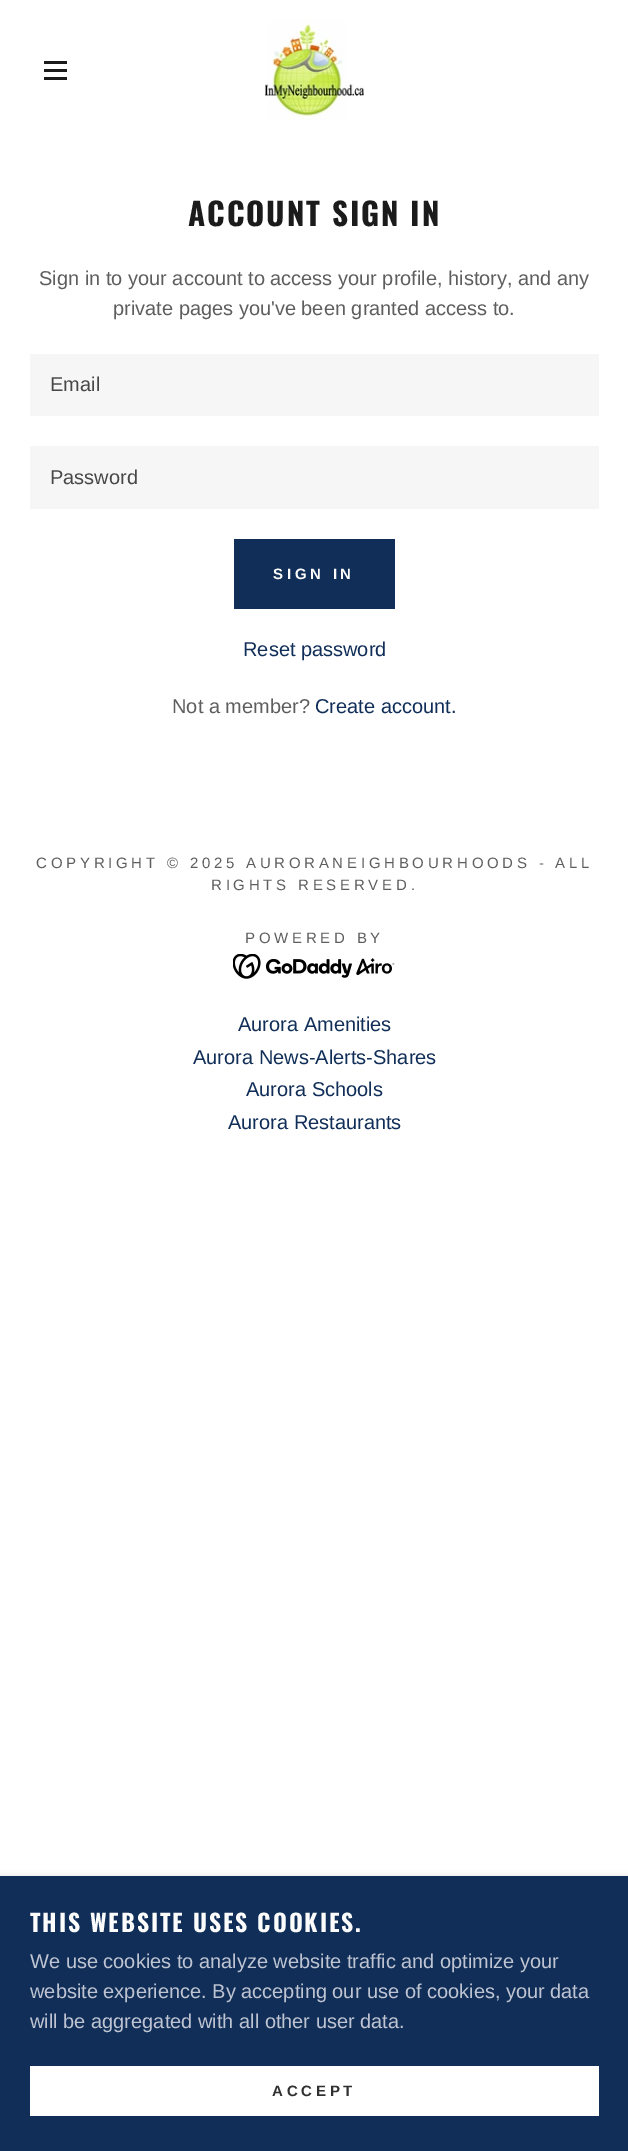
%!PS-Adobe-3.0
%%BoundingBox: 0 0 628 2151
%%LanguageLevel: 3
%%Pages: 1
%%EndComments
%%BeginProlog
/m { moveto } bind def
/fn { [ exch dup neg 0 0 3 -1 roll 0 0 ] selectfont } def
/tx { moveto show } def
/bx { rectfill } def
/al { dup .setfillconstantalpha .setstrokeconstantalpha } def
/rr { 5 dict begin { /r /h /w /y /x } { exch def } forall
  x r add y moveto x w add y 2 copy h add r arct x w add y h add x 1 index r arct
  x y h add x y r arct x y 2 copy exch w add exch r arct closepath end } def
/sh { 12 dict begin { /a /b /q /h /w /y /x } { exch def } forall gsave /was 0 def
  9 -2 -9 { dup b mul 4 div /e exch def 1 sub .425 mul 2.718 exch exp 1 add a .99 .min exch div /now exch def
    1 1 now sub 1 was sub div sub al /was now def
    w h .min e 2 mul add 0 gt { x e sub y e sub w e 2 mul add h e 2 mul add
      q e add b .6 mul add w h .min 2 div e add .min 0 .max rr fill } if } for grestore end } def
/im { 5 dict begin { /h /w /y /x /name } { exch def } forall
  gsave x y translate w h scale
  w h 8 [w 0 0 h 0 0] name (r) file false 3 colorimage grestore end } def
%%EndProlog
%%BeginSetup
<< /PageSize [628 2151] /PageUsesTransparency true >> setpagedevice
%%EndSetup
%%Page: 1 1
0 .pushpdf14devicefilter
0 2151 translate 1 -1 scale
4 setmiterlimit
1 setgray
0 0 628 2151 bx
0.106 setgray
44 61 23 3 bx
44 69 23 3 bx
44 77 23 3 bx
(image0.raw) 265 20 99 100 im
/Oswald-Bold 31.25 fn
188 226 m 1.9 0 (ACCOUNT SIGN IN) ashow
/LiberationSans-Regular 20 fn
0.369 setgray
(Sign in to your account to access your profile, history, and any) 39 285 tx
(private pages you've been granted access to.) 113 315 tx
0.965 setgray
30 354 569 62 bx
0.278 setgray
(Email) 50 391 tx
0.965 setgray
30 446 569 63 bx
0.278 setgray
(Password) 50 484 tx
0.063 0.18 0.341 setrgbcolor
234 539 161 70 bx
/LiberationSans-Bold 15 fn
0.988 setgray
273 579 m 3.75 0 (SIGN IN) ashow
/LiberationSans-Regular 20 fn
0.063 0.18 0.341 setrgbcolor
(Reset password) 243 656 tx
0.369 setgray
(Not a member?) 172 713 tx
0.063 0.18 0.341 setrgbcolor
(Create account.) 315 713 tx
/LiberationSans-Regular 15 fn
0.369 setgray
36 868 m 3.75 0 (COPYRIGHT © 2025 AURORANEIGHBOURHOODS - ALL) ashow
211 890 m 3.75 0 (RIGHTS RESERVED.) ashow
245 943 m 3.75 0 (POWERED BY) ashow
(image1.raw) 233 954 162 25 im
/LiberationSans-Regular 20 fn
0.063 0.18 0.341 setrgbcolor
(Aurora Amenities) 238 1031 tx
(Aurora News-Alerts-Shares) 193 1064 tx
(Aurora Schools) 246 1096 tx
(Aurora Restaurants) 228 1129 tx
0 setgray
0 1879 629 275 0 4 0.3 sh
0.063 0.18 0.341 setrgbcolor
0 1876 628 275 bx
/Oswald-Bold 23.75 fn
0.988 setgray
30 1932 m 1.9 0 (THIS WEBSITE USES COOKIES.) ashow
/LiberationSans-Regular 20 fn
0.749 0.769 0.824 setrgbcolor
(We use cookies to analyze website traffic and optimize your) 30 1968 tx
(website experience. By accepting our use of cookies, your data) 30 1998 tx
(will be aggregated with all other user data.) 30 2028 tx
1 setgray
30 2066 569 50 bx
/LiberationSans-Bold 15 fn
0.188 setgray
272 2096 m 3.75 0 (ACCEPT) ashow
.poppdf14devicefilter showpage
%%EOF
